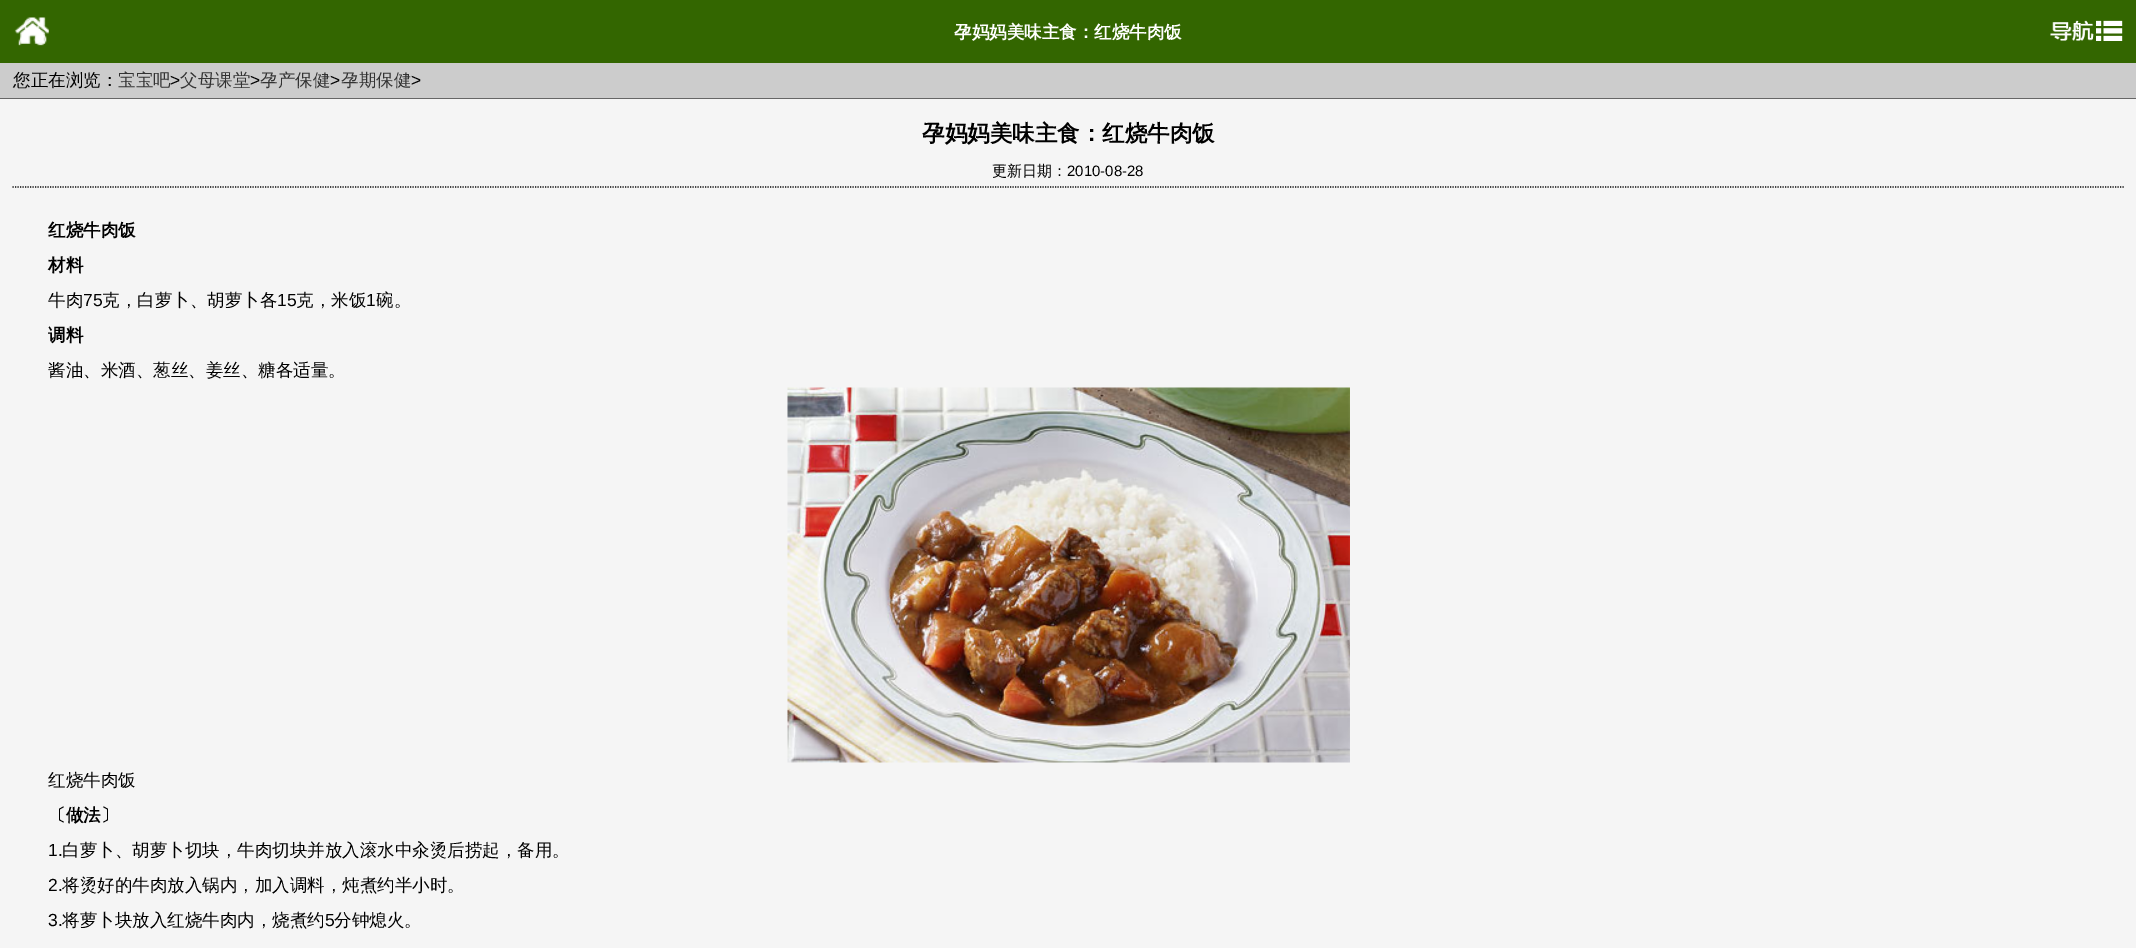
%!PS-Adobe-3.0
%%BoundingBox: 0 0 2136 948
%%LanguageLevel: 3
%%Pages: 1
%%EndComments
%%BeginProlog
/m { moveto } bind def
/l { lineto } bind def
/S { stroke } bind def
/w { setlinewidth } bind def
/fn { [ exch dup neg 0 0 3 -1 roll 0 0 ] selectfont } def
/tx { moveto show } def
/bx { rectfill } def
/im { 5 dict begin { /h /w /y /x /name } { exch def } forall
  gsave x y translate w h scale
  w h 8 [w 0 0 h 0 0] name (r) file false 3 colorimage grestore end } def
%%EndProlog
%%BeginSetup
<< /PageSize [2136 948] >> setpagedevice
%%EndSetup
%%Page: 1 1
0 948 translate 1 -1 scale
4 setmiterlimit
0.961 setgray
0 0 2136 948 bx
0.2 0.4 0 setrgbcolor
0 0 2136 63 bx
(image0.raw) 14 17 35 29 im
/WenQuanYiZenHei-Bold 17.5 fn
1 setgray
(孕妈妈美味主食：红烧牛肉饭) 954 38 tx
(image1.raw) 2050 20 73 21 im
0.8 setgray
0 63 2136 35 bx
0.4 setgray
0 98 2136 1 bx
/WenQuanYiZenHei-Medium 17.5 fn
0 setgray
(您正在浏览：) 13 86 tx
0.2 setgray
(宝宝吧) 118 86 tx
/LiberationSans-Regular 17.5 fn
0 setgray
(>) 170 86 tx
/WenQuanYiZenHei-Medium 17.5 fn
0.2 setgray
(父母课堂) 180 86 tx
/LiberationSans-Regular 17.5 fn
0 setgray
(>) 250 86 tx
/WenQuanYiZenHei-Medium 17.5 fn
0.2 setgray
(孕产保健) 260 86 tx
/LiberationSans-Regular 17.5 fn
0 setgray
(>) 330 86 tx
/WenQuanYiZenHei-Medium 17.5 fn
0.2 setgray
(孕期保健) 341 86 tx
/LiberationSans-Regular 17.5 fn
0 setgray
(>) 411 86 tx
/WenQuanYiZenHei-Bold 22.5 fn
(孕妈妈美味主食：红烧牛肉饭) 922 141 tx
1.2 w
[1.25 1.25] 0 setdash
12.5 187 m 2124 187 l S
/WenQuanYiZenHei-Medium 15 fn
(更新日期：) 992 176 tx
/LiberationSans-Regular 15 fn
(2010-08-28) 1067 176 tx
/WenQuanYiZenHei-Bold 17.5 fn
(红烧牛肉饭) 48 236 tx
(材料) 48 271 tx
/WenQuanYiZenHei-Medium 17.5 fn
(牛肉) 48 306 tx
/LiberationSans-Regular 17.5 fn
(75) 83 306 tx
/WenQuanYiZenHei-Medium 17.5 fn
(克，白萝卜、胡萝卜各) 102 306 tx
/LiberationSans-Regular 17.5 fn
(15) 277 306 tx
/WenQuanYiZenHei-Medium 17.5 fn
(克，米饭) 296 306 tx
/LiberationSans-Regular 17.5 fn
(1) 366 306 tx
/WenQuanYiZenHei-Medium 17.5 fn
(碗。) 376 306 tx
/WenQuanYiZenHei-Bold 17.5 fn
(调料) 48 341 tx
/WenQuanYiZenHei-Medium 17.5 fn
(酱油、米酒、葱丝、姜丝、糖各适量。) 48 376 tx
(image2.raw) 787 387 563 376 im
(红烧牛肉饭) 48 786 tx
/WenQuanYiZenHei-Bold 17.5 fn
(〔做法〕) 48 821 tx
/LiberationSans-Regular 17.5 fn
(1.) 48 856 tx
/WenQuanYiZenHei-Medium 17.5 fn
(白萝卜、胡萝卜切块，牛肉切块并放入滚水中汆烫后捞起，备用。) 62 856 tx
/LiberationSans-Regular 17.5 fn
(2.) 48 891 tx
/WenQuanYiZenHei-Medium 17.5 fn
(将烫好的牛肉放入锅内，加入调料，炖煮约半小时。) 62 891 tx
/LiberationSans-Regular 17.5 fn
(3.) 48 926 tx
/WenQuanYiZenHei-Medium 17.5 fn
(将萝卜块放入红烧牛肉内，烧煮约) 62 926 tx
/LiberationSans-Regular 17.5 fn
(5) 325 926 tx
/WenQuanYiZenHei-Medium 17.5 fn
(分钟熄火。) 334 926 tx
showpage
%%EOF
